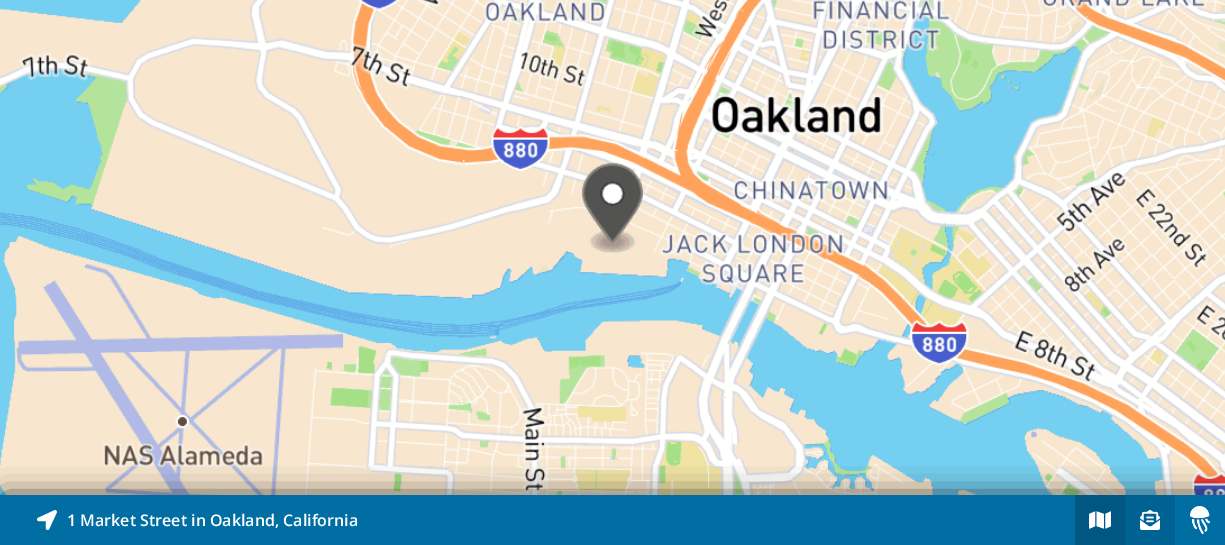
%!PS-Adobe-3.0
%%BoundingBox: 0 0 1225 545
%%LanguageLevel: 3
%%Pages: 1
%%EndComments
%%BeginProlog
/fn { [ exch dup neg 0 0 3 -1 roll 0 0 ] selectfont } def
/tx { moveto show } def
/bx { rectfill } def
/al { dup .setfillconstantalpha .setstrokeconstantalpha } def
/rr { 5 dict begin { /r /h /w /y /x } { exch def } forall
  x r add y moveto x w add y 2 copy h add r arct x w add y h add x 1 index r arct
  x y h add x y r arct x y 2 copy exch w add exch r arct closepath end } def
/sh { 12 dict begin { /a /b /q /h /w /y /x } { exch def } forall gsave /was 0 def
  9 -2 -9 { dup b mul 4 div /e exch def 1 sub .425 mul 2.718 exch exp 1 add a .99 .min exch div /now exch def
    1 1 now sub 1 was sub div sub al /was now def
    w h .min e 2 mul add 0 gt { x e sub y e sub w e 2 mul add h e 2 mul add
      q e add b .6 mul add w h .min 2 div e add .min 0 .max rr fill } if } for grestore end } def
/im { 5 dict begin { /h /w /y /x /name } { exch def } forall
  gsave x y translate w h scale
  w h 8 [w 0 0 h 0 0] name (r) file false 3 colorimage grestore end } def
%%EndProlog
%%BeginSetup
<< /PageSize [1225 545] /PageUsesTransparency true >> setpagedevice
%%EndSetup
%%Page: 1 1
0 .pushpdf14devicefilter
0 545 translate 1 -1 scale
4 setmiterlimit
1 setgray
0 0 1225 545 bx
(image0.raw) 0 0 1225 495 im
0 setgray
5 500 1215 40 0 15 1 sh
0 0.427 0.639 setrgbcolor
0 495 1225 50 bx
(image1.raw) 37 510 20 20 im
/OpenSans-SemiBold 16 fn
1 setgray
(1 Market Street in Oakland, California) 67 526 tx
0 0.341 0.51 setrgbcolor
1075 495 50 50 bx
(image2.raw) 1089 511 22 18 im
0 0.384 0.576 setrgbcolor
1125 495 50 50 bx
(image3.raw) 1140 510 20 20 im
(image4.raw) 1190 506 20 28 im
.poppdf14devicefilter showpage
%%EOF
